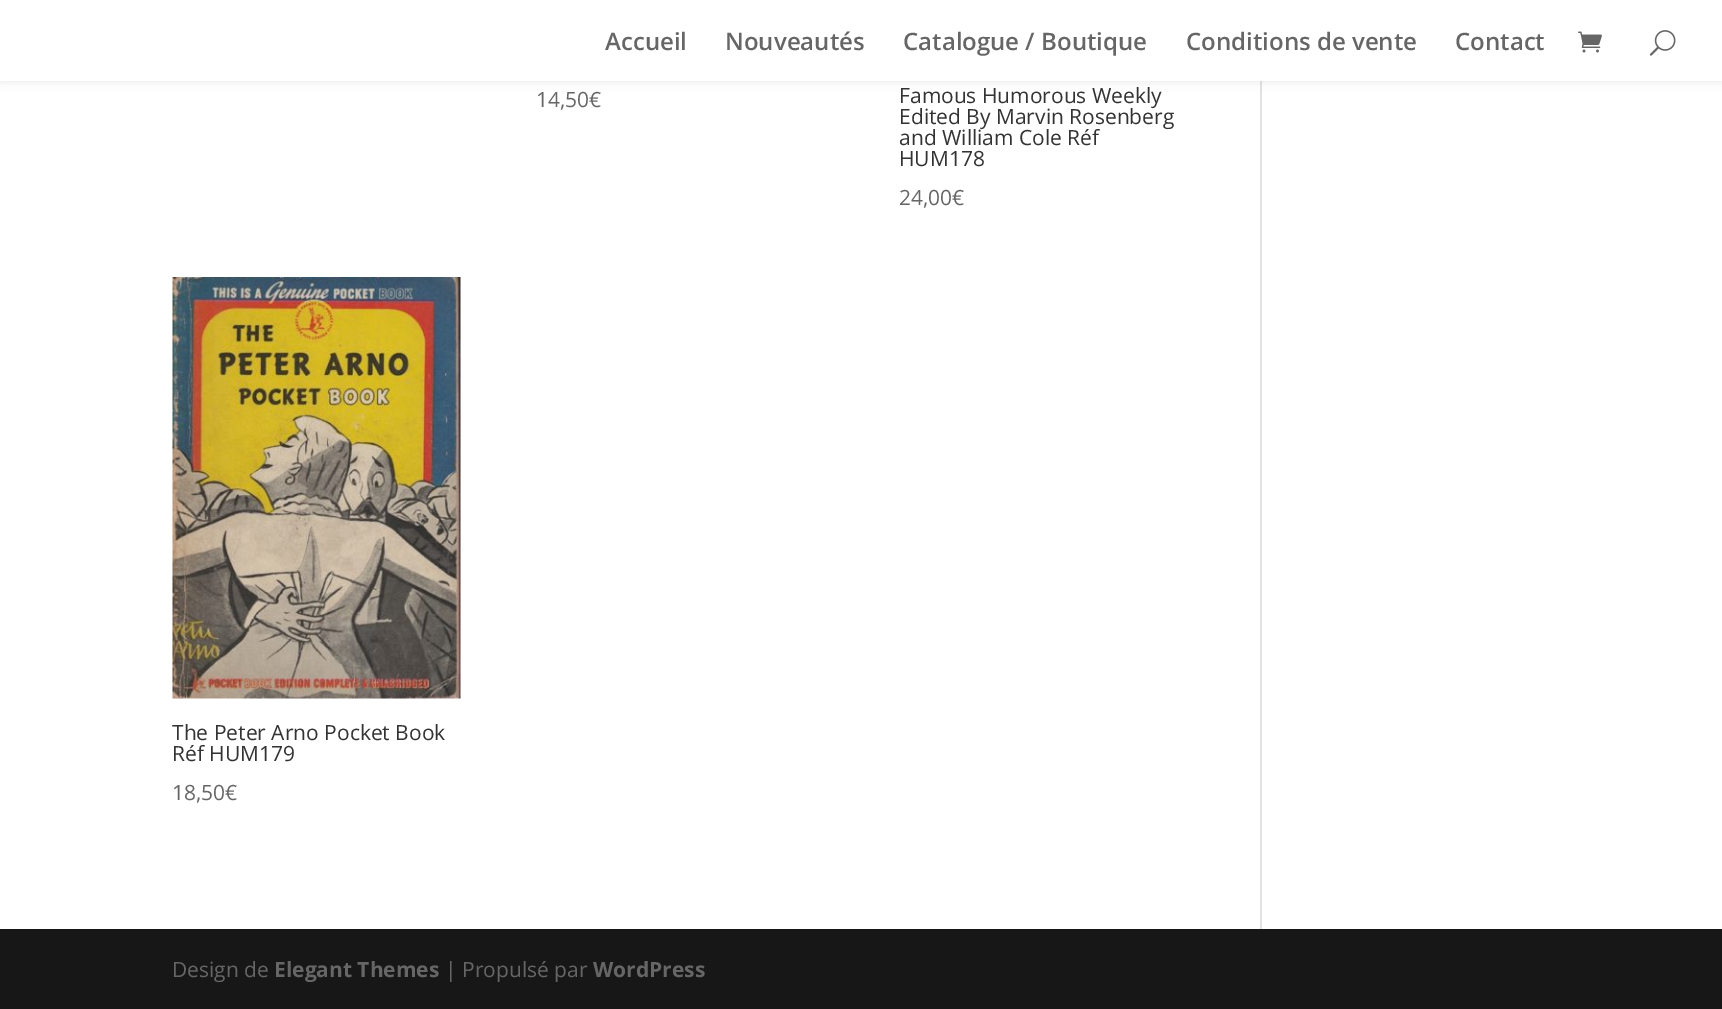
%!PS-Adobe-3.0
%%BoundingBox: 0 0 1722 1009
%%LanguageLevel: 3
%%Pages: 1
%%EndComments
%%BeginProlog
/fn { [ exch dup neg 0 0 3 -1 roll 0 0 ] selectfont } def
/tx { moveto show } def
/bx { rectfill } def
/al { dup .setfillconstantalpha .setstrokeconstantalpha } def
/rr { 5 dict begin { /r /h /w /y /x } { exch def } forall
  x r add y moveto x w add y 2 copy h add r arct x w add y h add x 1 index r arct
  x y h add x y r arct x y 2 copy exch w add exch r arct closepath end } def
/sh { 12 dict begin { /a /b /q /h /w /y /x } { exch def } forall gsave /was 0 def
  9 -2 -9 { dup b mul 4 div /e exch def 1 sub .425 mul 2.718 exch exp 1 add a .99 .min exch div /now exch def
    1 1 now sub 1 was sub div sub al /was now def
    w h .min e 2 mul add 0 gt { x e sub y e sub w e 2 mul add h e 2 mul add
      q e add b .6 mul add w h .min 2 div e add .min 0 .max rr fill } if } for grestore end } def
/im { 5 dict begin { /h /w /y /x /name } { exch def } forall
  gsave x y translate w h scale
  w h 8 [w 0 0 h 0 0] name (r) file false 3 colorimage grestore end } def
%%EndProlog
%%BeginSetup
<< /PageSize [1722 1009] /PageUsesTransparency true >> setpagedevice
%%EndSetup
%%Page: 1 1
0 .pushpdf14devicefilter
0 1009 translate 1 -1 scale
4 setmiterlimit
1 setgray
0 0 1722 1009 bx
0.886 setgray
1260 81 2 848 bx
0 setgray
0 0 1722 81 0 5 0.1 sh
1 setgray
0 0 1722 81 bx
/OpenSans-SemiBold 24 fn
0.4 setgray
(Accueil) 605 50 tx
(Nouveautés) 725 50 tx
(Catalogue / Boutique) 903 50 tx
(Conditions de vente) 1186 50 tx
(Contact) 1455 50 tx
(image0.raw) 1578 31 24 22 im
(image1.raw) 1649 30 27 26 im
/OpenSans-Regular 21 fn
(14,50€) 536 107 tx
0.2 setgray
(Famous Humorous Weekly) 899 103 tx
(Edited By Marvin Rosenberg) 899 124 tx
(and William Cole Réf) 899 145 tx
(HUM178) 899 166 tx
0.4 setgray
(24,00€) 899 205 tx
(image2.raw) 172 277 289 422 im
0.2 setgray
(The Peter Arno Pocket Book) 172 740 tx
(Réf HUM179) 172 761 tx
0.4 setgray
(18,50€) 172 800 tx
0.09 setgray
0 929 1722 80 bx
0.4 setgray
(Design de) 172 977 tx
/OpenSans-Bold 21 fn
(Elegant Themes) 274 977 tx
/OpenSans-Regular 21 fn
(| Propulsé par) 445 977 tx
/OpenSans-Bold 21 fn
(WordPress) 593 977 tx
.poppdf14devicefilter showpage
%%EOF
